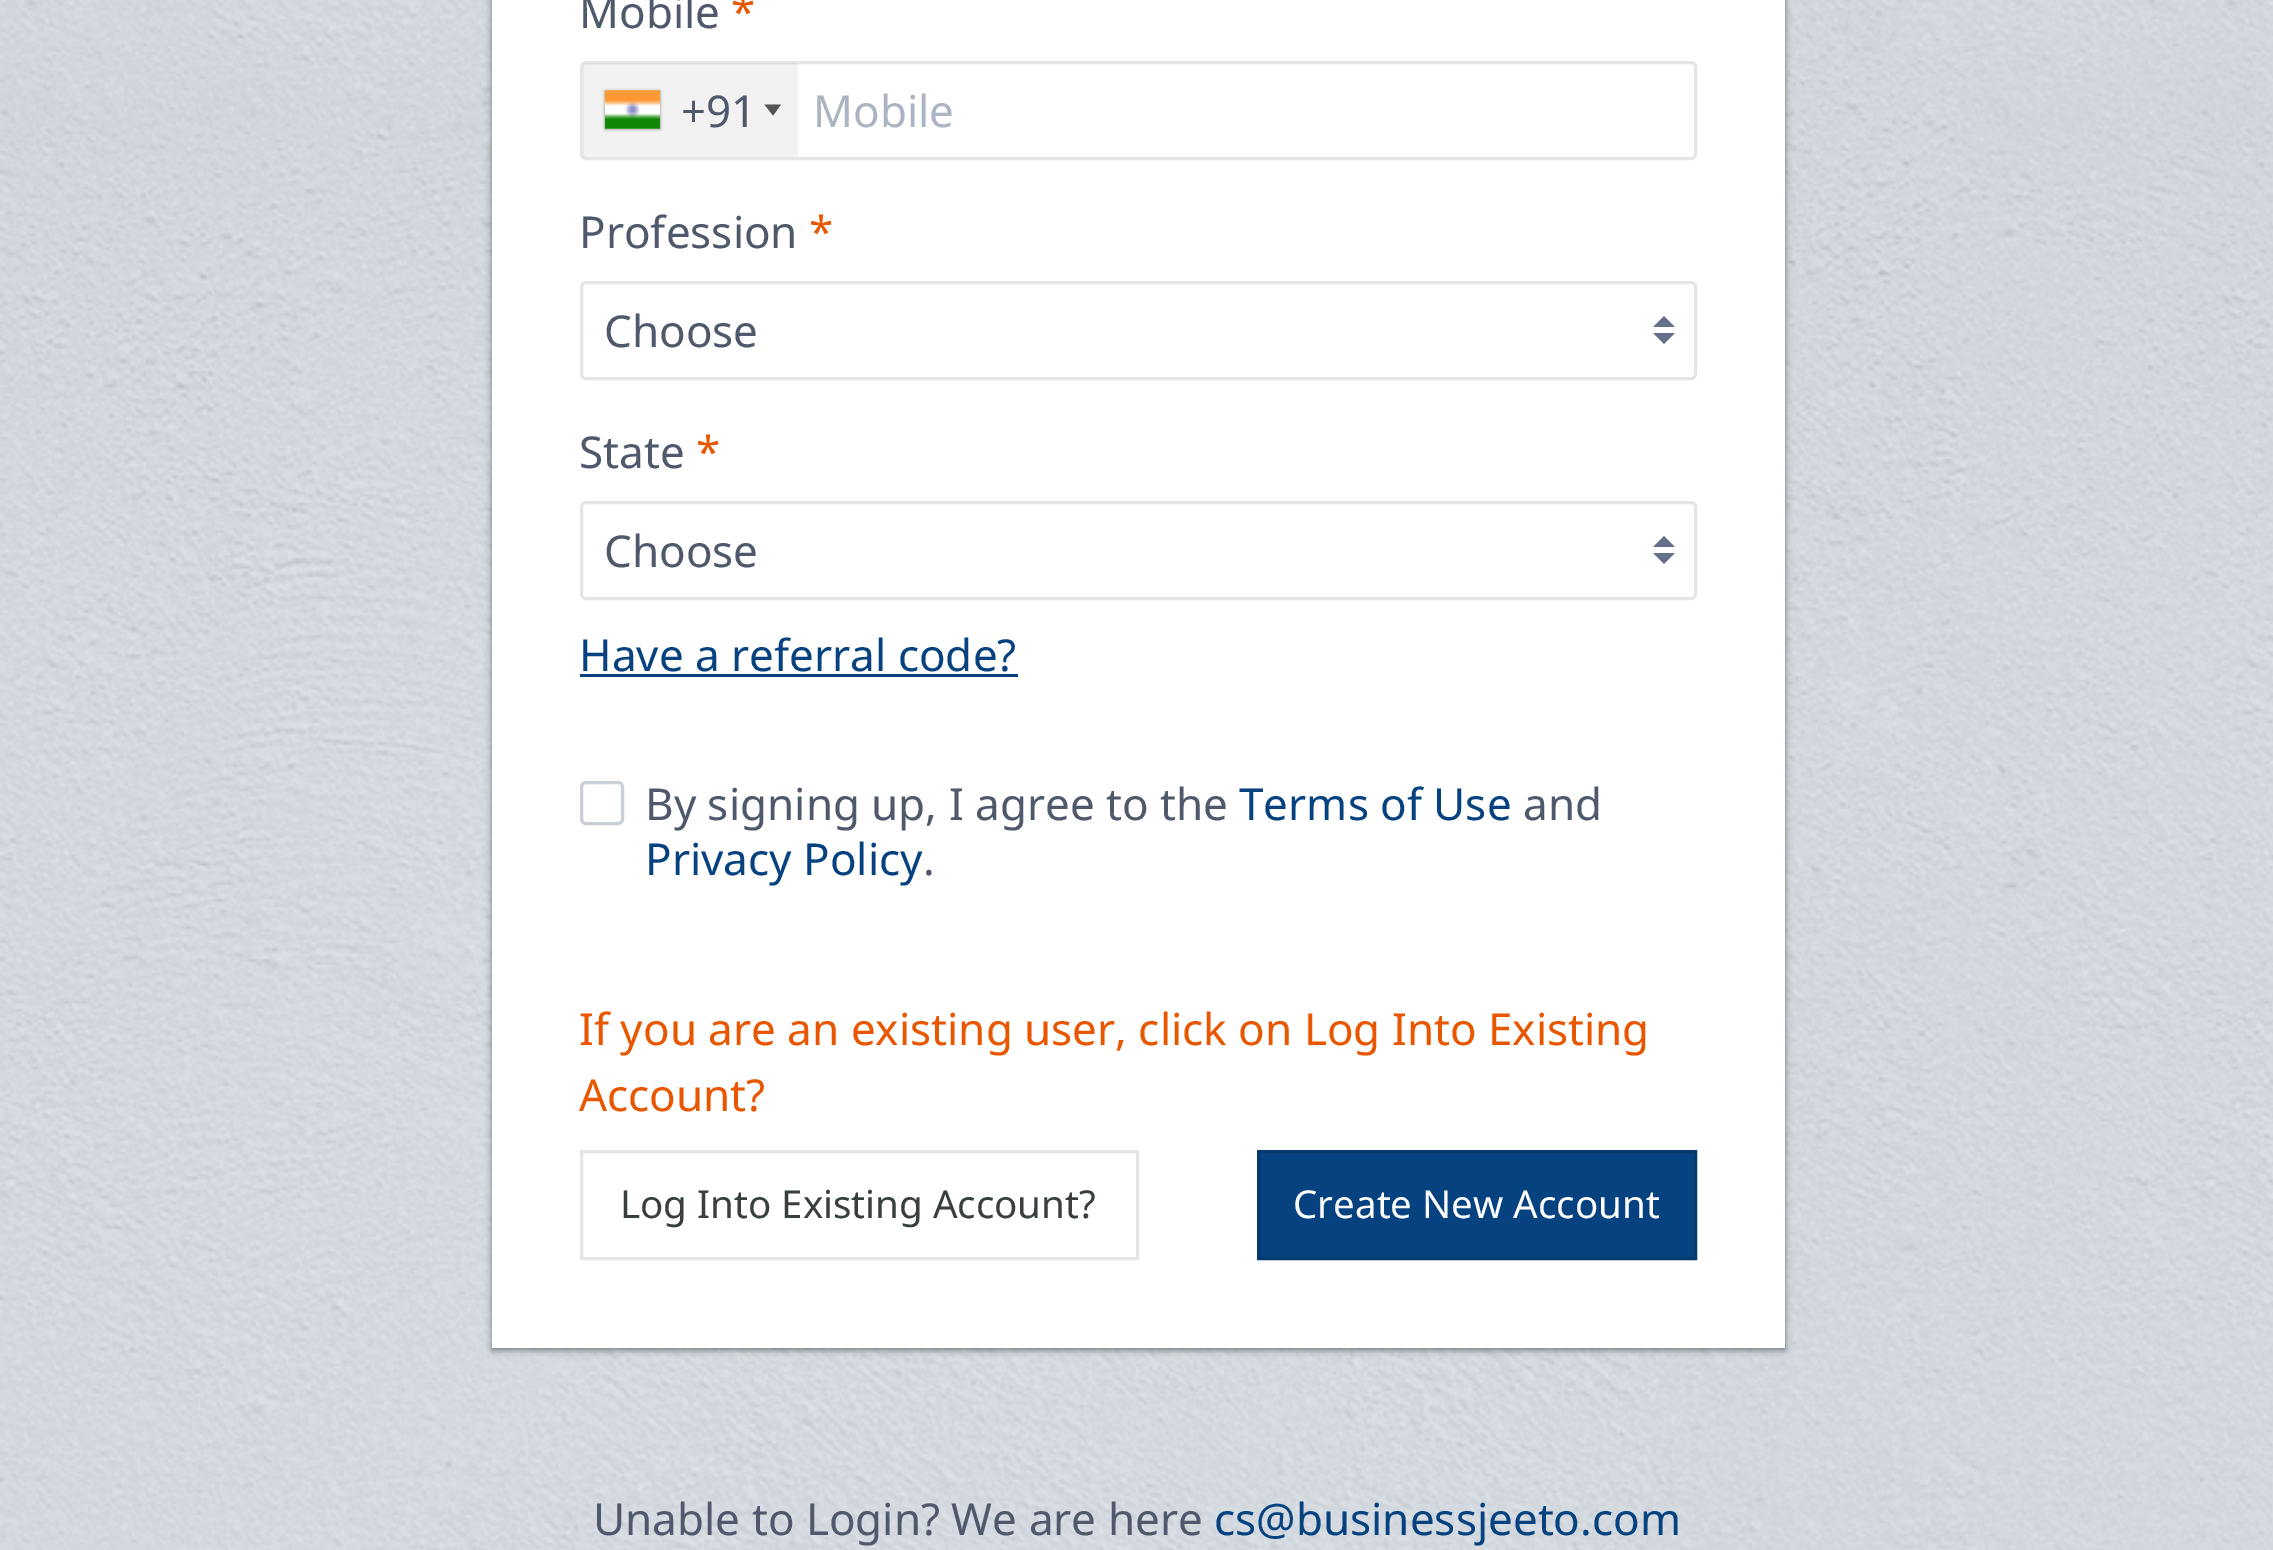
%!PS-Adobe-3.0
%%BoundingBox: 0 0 2273 1550
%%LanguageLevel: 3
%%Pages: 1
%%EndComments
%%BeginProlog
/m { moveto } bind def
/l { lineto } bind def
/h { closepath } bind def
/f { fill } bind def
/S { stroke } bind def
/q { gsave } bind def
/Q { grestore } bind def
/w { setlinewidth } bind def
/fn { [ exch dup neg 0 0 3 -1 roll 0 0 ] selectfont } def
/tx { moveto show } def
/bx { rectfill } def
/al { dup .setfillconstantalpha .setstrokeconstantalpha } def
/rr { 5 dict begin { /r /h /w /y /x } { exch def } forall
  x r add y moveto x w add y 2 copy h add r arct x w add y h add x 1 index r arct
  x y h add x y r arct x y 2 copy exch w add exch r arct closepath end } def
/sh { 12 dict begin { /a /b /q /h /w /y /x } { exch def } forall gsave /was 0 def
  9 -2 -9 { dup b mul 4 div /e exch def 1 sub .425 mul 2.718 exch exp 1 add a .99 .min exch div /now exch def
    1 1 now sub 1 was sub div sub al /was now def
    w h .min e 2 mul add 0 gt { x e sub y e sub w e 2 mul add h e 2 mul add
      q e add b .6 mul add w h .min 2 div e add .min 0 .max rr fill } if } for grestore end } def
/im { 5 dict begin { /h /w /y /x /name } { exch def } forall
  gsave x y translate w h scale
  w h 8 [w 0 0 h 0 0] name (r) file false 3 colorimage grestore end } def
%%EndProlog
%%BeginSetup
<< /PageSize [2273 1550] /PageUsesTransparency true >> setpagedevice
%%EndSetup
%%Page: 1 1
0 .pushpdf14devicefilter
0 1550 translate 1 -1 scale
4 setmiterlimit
1 setgray
0 0 2273 1550 bx
(image0.raw) 0 0 2273 1550 im
0 setgray
492 -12 1293 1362 0 4 0.2 sh
492 -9 1293 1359 0 3 0.3 sh
1 setgray
492 0 1293 1348 bx
/NotoSans-Regular 44 fn
0.314 0.349 0.424 setrgbcolor
(Mobile) 579 28 tx
0.91 0.337 0 setrgbcolor
(*) 731 28 tx
0.898 setgray
3 w
581.5 62.5 1114 96 4.5 rr S
0.05 al
0 setgray
583 63 215 94 bx
1 al
0.533 setgray
605 91 55 38 0 1.5 1 sh
(image1.raw) 605 90 55 39 im
0.314 0.349 0.424 setrgbcolor
(+91) 681 127 tx
0.333 setgray
764.5 104.5 m 781 104.5 l 773 115.5 l h f
0.675 0.702 0.761 setrgbcolor
(Mobile) 813 127 tx
0.314 0.349 0.424 setrgbcolor
(Profession) 579 248 tx
0.91 0.337 0 setrgbcolor
(*) 809 248 tx
0.4 0.443 0.537 setrgbcolor
1664 316 m 1653 327 l 1675 327 l h 1664 344 m 1653 333 l 1675 333 l h f
0.898 setgray
581.5 282.5 1114 96 4.5 rr S
0.314 0.349 0.424 setrgbcolor
(Choose) 604 347 tx
(State) 579 468 tx
0.91 0.337 0 setrgbcolor
(*) 696 468 tx
0.4 0.443 0.537 setrgbcolor
1664 536 m 1653 547 l 1675 547 l h 1664 564 m 1653 553 l 1675 553 l h f
0.898 setgray
581.5 502.5 1114 96 4.5 rr S
0.314 0.349 0.424 setrgbcolor
(Choose) 604 567 tx
0.024 0.259 0.498 setrgbcolor
(Have a referral code?) 579 671 tx
580 674 438 3 bx
0.792 0.808 0.843 setrgbcolor
581.5 782.5 41 41 4.5 rr S
0.314 0.349 0.424 setrgbcolor
(By signing up, I agree to the) 645 820 tx
0.024 0.259 0.498 setrgbcolor
(Terms of Use) 1239 820 tx
0.314 0.349 0.424 setrgbcolor
(and) 1523 820 tx
0.024 0.259 0.498 setrgbcolor
(Privacy Policy) 645 875 tx
0.314 0.349 0.424 setrgbcolor
(.) 923 875 tx
0.91 0.337 0 setrgbcolor
(If you are an existing user, click on Log Into Existing) 579 1045 tx
(Account?) 579 1111 tx
0.898 setgray
581.5 1151.5 556 107 rectstroke
/NotoSans-Regular 38.5 fn
0.224 0.247 0.255 setrgbcolor
(Log Into Existing Account?) 620 1218 tx
0.024 0.259 0.498 setrgbcolor
1258.5 1151.5 m 1695.5 1151.5 l 1695.5 1258.5 l 1258.5 1258.5 l h q f Q
0.02 0.227 0.439 setrgbcolor
S
1 setgray
(Create New Account) 1293 1218 tx
/NotoSans-Regular 44 fn
0.314 0.349 0.424 setrgbcolor
(Unable to Login? We are here) 593 1535 tx
0.024 0.259 0.498 setrgbcolor
(cs@businessjeeto.com) 1214 1535 tx
.poppdf14devicefilter showpage
%%EOF
